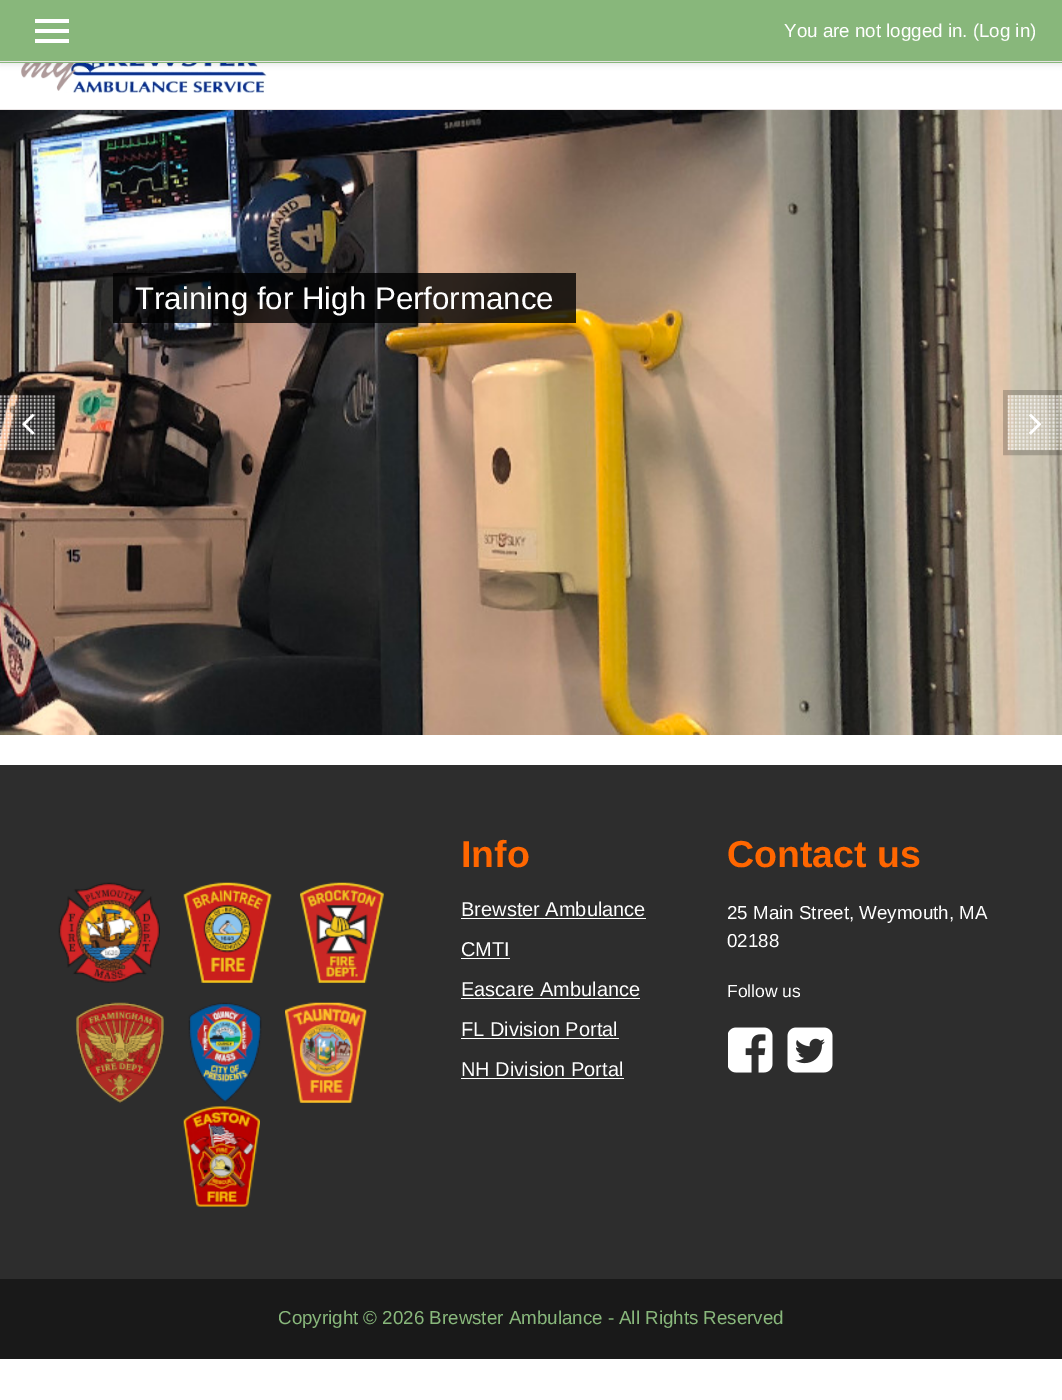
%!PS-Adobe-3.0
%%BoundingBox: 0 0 1062 1400
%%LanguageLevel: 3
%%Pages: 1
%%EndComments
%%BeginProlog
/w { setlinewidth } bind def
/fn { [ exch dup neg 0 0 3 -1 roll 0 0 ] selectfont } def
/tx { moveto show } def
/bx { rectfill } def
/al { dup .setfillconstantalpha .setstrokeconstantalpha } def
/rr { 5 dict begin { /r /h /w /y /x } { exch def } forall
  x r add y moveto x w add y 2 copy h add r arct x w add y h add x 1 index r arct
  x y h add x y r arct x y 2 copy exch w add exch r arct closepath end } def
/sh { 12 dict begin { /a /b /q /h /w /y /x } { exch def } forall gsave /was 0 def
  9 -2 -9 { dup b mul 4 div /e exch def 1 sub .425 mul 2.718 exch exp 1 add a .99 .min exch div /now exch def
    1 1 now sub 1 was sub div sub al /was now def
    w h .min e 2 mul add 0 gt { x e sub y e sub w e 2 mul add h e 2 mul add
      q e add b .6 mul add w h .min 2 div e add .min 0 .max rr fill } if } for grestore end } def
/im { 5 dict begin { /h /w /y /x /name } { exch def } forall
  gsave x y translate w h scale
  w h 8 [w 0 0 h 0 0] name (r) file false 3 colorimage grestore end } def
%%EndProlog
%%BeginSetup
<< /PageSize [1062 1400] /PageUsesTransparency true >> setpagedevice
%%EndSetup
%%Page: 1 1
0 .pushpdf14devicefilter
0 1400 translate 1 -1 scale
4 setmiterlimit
1 setgray
0 0 1062 1400 bx
(image0.raw) 21 63 246 30 im
0 setgray
0 3 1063 62 0 2.5 0.08 sh
0.533 0.718 0.482 setrgbcolor
0 0 1062 63 bx
0.91 0.89 0.89 setrgbcolor
0 61 1062 1 bx
1 setgray
35 19 34 4 bx
35 29 34 4 bx
35 39 34 4 bx
/LiberationSans-Regular 18.75 fn
(You are not logged in. \(Log in\)) 784 37 tx
0.91 0.89 0.89 setrgbcolor
0 109 1062 1 bx
(image1.raw) 0 110 1062 625 im
0.8 al
0 setgray
113 273 463 50 bx
/LiberationSans-Regular 31.25 fn
1 al
1 setgray
(Training for High Performance) 135 309 tx
0.2 al
0 setgray
5 w
-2.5 392.5 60 60 rectstroke
1 al
(image2.raw) 0 395 55 56 im
(image3.raw) 22 413 13 22 im
0.2 al
1005.5 392.5 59 60 rectstroke
1 al
(image4.raw) 1007 395 55 56 im
(image5.raw) 1029 413 13 22 im
0.176 setgray
0 765 1062 514 bx
(image6.raw) 58 882 102 101 im
(image7.raw) 183 882 89 101 im
(image8.raw) 300 882 84 101 im
(image9.raw) 76 1002 88 101 im
(image10.raw) 188 1002 74 101 im
(image11.raw) 285 1002 82 101 im
(image12.raw) 183 1106 77 101 im
/LiberationSans-Bold 37.5 fn
1 0.4 0 setrgbcolor
(Info) 461 867 tx
/LiberationSans-Regular 20 fn
1 setgray
(Brewster Ambulance) 461 916 tx
461 918 185 1 bx
(CMTI) 461 956 tx
461 958 49 1 bx
(Eascare Ambulance) 461 996 tx
461 998 179 1 bx
(FL Division Portal) 461 1036 tx
461 1038 158 1 bx
(NH Division Portal) 461 1076 tx
461 1078 163 1 bx
/LiberationSans-Bold 37.5 fn
1 0.4 0 setrgbcolor
(Contact us) 727 867 tx
/LiberationSans-Regular 18.75 fn
1 setgray
(25 Main Street, Weymouth, MA) 727 919 tx
(02188) 727 947 tx
/LiberationSans-Regular 17.5 fn
(Follow us) 727 997 tx
(image13.raw) 728 1027 45 46 im
(image14.raw) 787 1027 46 46 im
0.098 setgray
0 1279 1062 80 bx
/LiberationSans-Regular 18.75 fn
0.533 0.718 0.482 setrgbcolor
(Copyright © 2026 Brewster Ambulance - All Rights Reserved) 278 1324 tx
.poppdf14devicefilter showpage
%%EOF
